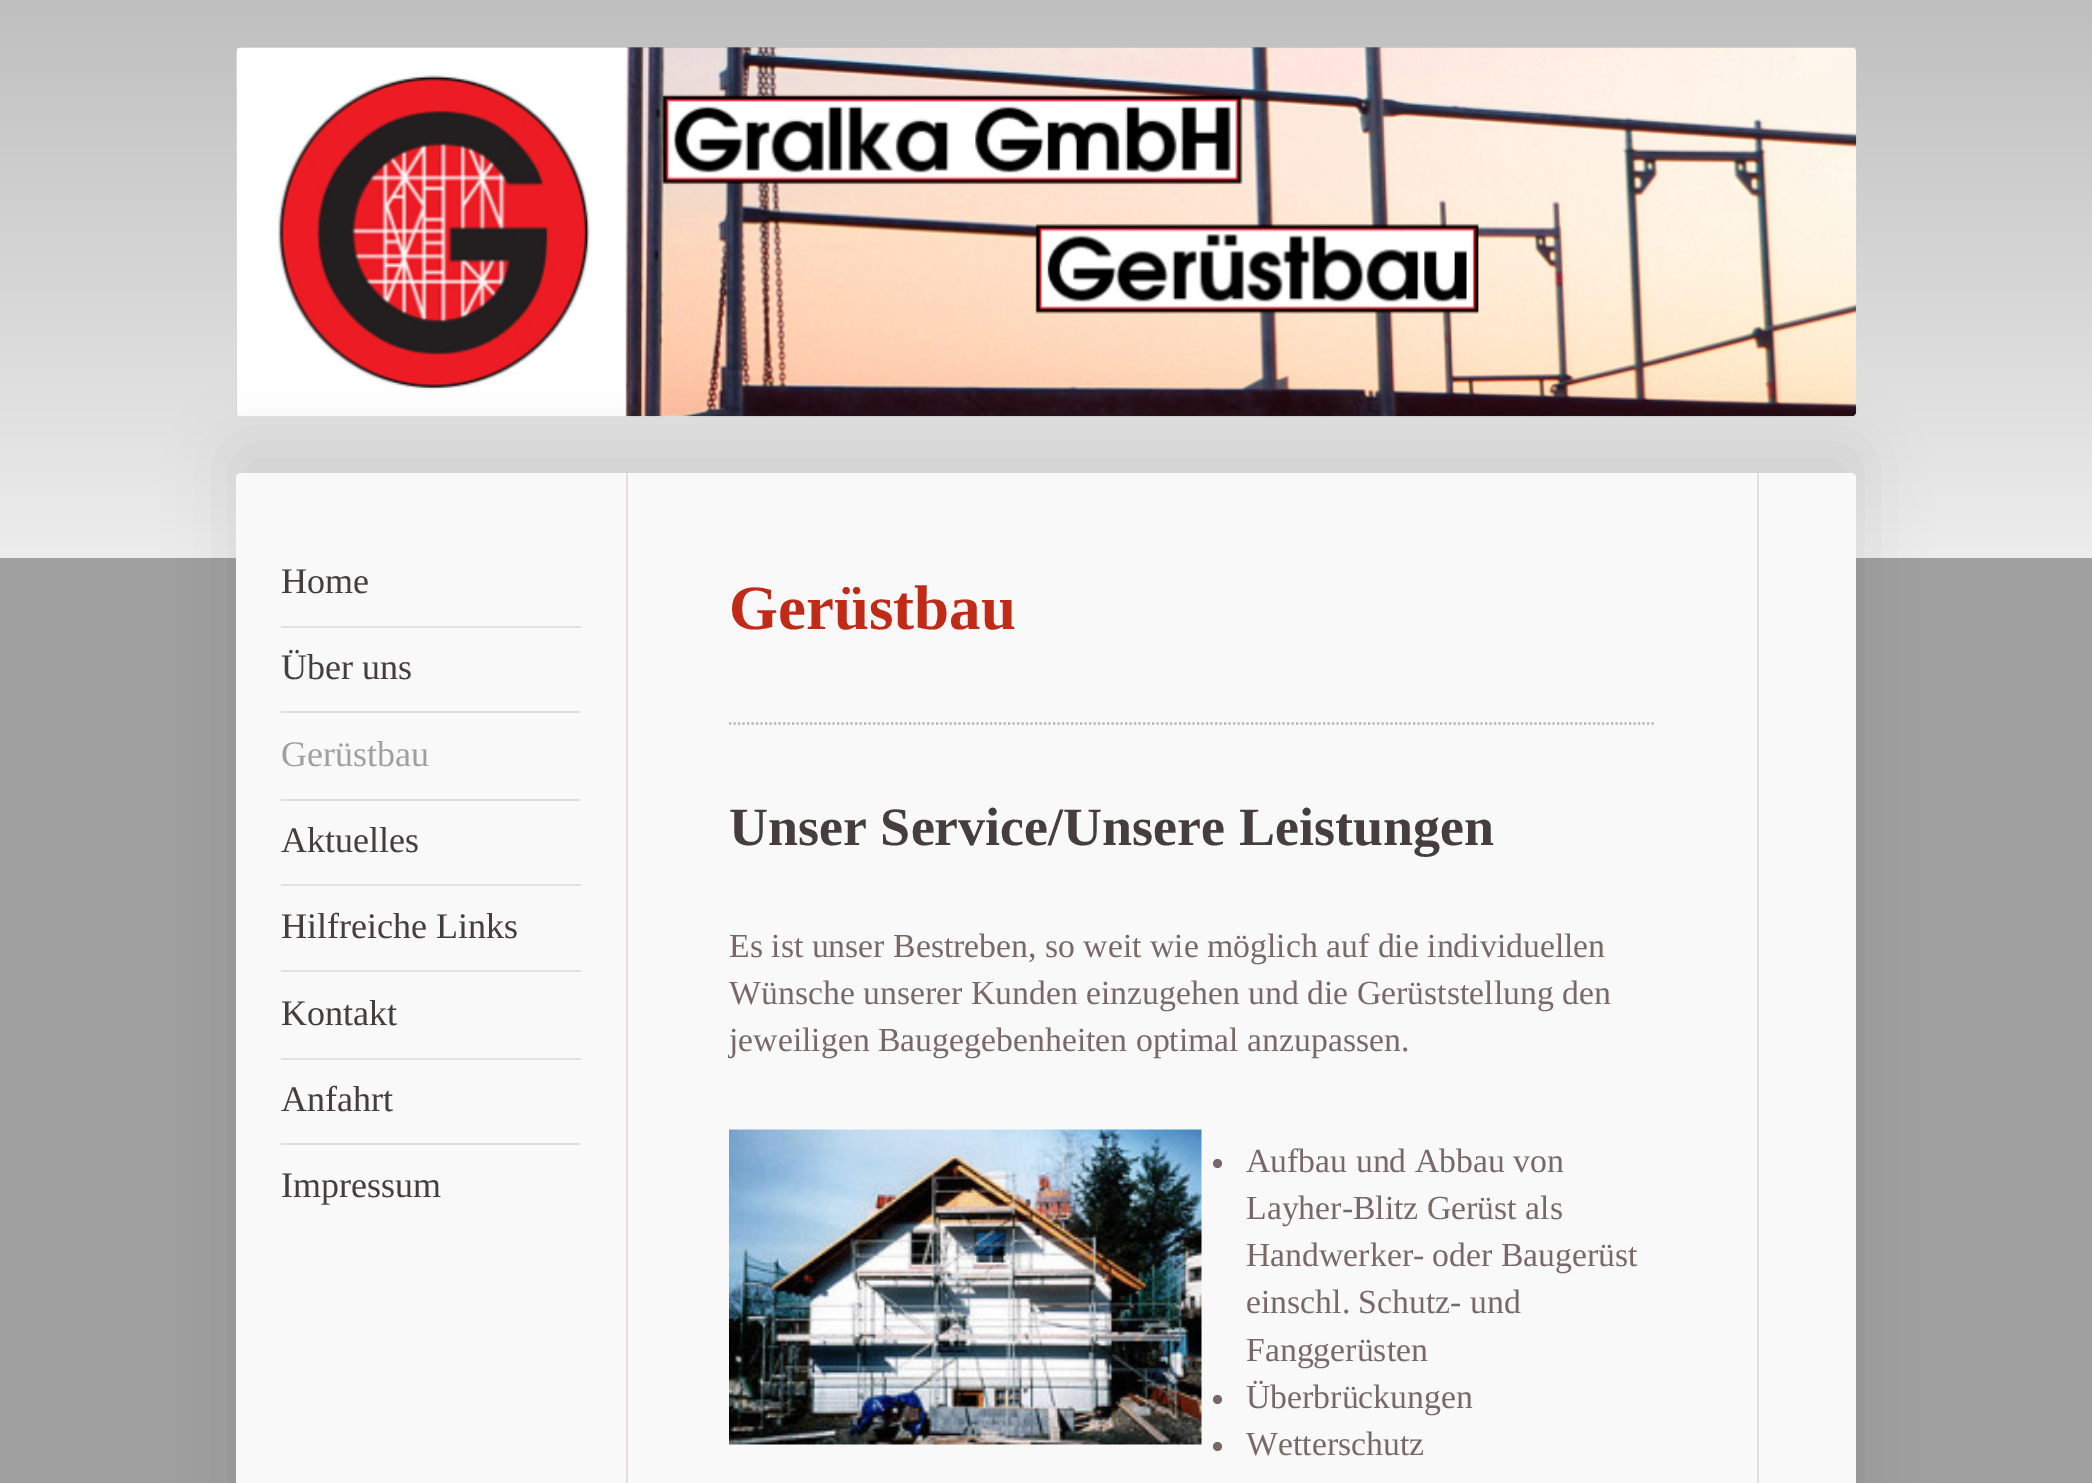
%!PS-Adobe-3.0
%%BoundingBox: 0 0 2092 1483
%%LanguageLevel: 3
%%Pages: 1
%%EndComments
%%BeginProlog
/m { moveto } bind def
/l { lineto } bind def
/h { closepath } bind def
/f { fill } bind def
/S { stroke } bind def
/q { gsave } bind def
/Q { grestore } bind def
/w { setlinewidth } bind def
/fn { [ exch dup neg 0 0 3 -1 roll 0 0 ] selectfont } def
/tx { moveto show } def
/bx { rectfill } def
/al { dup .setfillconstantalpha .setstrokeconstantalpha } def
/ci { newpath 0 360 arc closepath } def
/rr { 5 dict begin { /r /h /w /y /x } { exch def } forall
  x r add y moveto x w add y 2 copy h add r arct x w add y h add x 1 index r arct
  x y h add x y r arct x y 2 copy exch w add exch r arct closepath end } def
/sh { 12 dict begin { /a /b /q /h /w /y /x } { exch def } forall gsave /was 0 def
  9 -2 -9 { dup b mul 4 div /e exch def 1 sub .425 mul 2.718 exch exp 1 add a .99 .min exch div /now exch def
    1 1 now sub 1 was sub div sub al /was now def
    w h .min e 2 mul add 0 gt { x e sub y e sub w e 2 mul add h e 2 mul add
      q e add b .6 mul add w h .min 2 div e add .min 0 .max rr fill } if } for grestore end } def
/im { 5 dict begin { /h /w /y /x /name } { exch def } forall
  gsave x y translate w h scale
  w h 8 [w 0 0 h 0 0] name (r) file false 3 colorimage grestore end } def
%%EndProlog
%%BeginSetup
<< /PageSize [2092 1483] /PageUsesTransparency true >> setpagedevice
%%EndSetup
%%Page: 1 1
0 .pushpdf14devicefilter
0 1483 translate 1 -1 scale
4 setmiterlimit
0.631 0.627 0.627 setrgbcolor
0 0 2092 1483 bx
q 0 0 m 2092 0 l 2092 558 l 0 558 l h clip newpath
<< /ShadingType 2 /ColorSpace /DeviceRGB /Coords [0 558 0 0] /Extend [true true] /Function << /FunctionType 2 /Domain [0 1] /C0 [0.933 0.929 0.929] /C1 [0.753 0.749 0.749] /N 1 >> >> shfill Q
0.627 setgray
236 47 1620 369 5 rr f
(image0.raw) 236 47 1621 370 im
0 setgray
236 450 1620 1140 5 34 0.1 sh
0.98 0.976 0.976 setrgbcolor
236 473 1620 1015 5 rr f
0.882 0.878 0.878 setrgbcolor
281 626 300 2 bx
/LiberationSerif-Regular 36 fn
0.275 0.243 0.243 setrgbcolor
(Home) 281 593 tx
0.882 0.878 0.878 setrgbcolor
281 711 300 2 bx
0.275 0.243 0.243 setrgbcolor
(Über uns) 281 679 tx
0.882 0.878 0.878 setrgbcolor
281 799 300 2 bx
0.631 0.627 0.627 setrgbcolor
(Gerüstbau) 281 766 tx
0.882 0.878 0.878 setrgbcolor
281 884 300 2 bx
0.275 0.243 0.243 setrgbcolor
(Aktuelles) 281 852 tx
0.882 0.878 0.878 setrgbcolor
281 970 300 2 bx
0.275 0.243 0.243 setrgbcolor
(Hilfreiche Links) 281 938 tx
0.882 0.878 0.878 setrgbcolor
281 1058 300 2 bx
0.275 0.243 0.243 setrgbcolor
(Kontakt) 281 1025 tx
0.882 0.878 0.878 setrgbcolor
281 1143 300 2 bx
0.275 0.243 0.243 setrgbcolor
(Anfahrt) 281 1111 tx
(Impressum) 281 1197 tx
0.89 0.867 0.867 setrgbcolor
1757 473 2 1010 bx
626 473 2 1010 bx
/LiberationSerif-Bold 63 fn
0.753 0.169 0.094 setrgbcolor
(Gerüstbau) 729 629 tx
0.733 0.682 0.682 setrgbcolor
2.2 w
[2.25 2.25] 0 setdash
729 723.5 m 1656 723.5 l S
/LiberationSerif-Bold 54 fn
0.275 0.243 0.243 setrgbcolor
(Unser Service/Unsere Leistungen) 729 845 tx
/LiberationSerif-Regular 33.75 fn
0.471 0.408 0.408 setrgbcolor
(Es ist unser Bestreben, so weit wie möglich auf die individuellen) 729 957 tx
(Wünsche unserer Kunden einzugehen und die Gerüststellung den) 729 1004 tx
(jeweiligen Baugegebenheiten optimal anzupassen.) 729 1051 tx
(image1.raw) 729 1129 473 316 im
1217.5 1163.5 4.5 ci f
(Aufbau und Abbau von) 1246 1172 tx
(Layher-Blitz Gerüst als) 1246 1219 tx
(Handwerker- oder Baugerüst) 1246 1266 tx
(einschl. Schutz- und) 1246 1313 tx
(Fanggerüsten) 1246 1361 tx
1217.5 1399.5 4.5 ci f
(Überbrückungen) 1246 1408 tx
1217.5 1446.5 4.5 ci f
(Wetterschutz) 1246 1455 tx
.poppdf14devicefilter showpage
%%EOF
